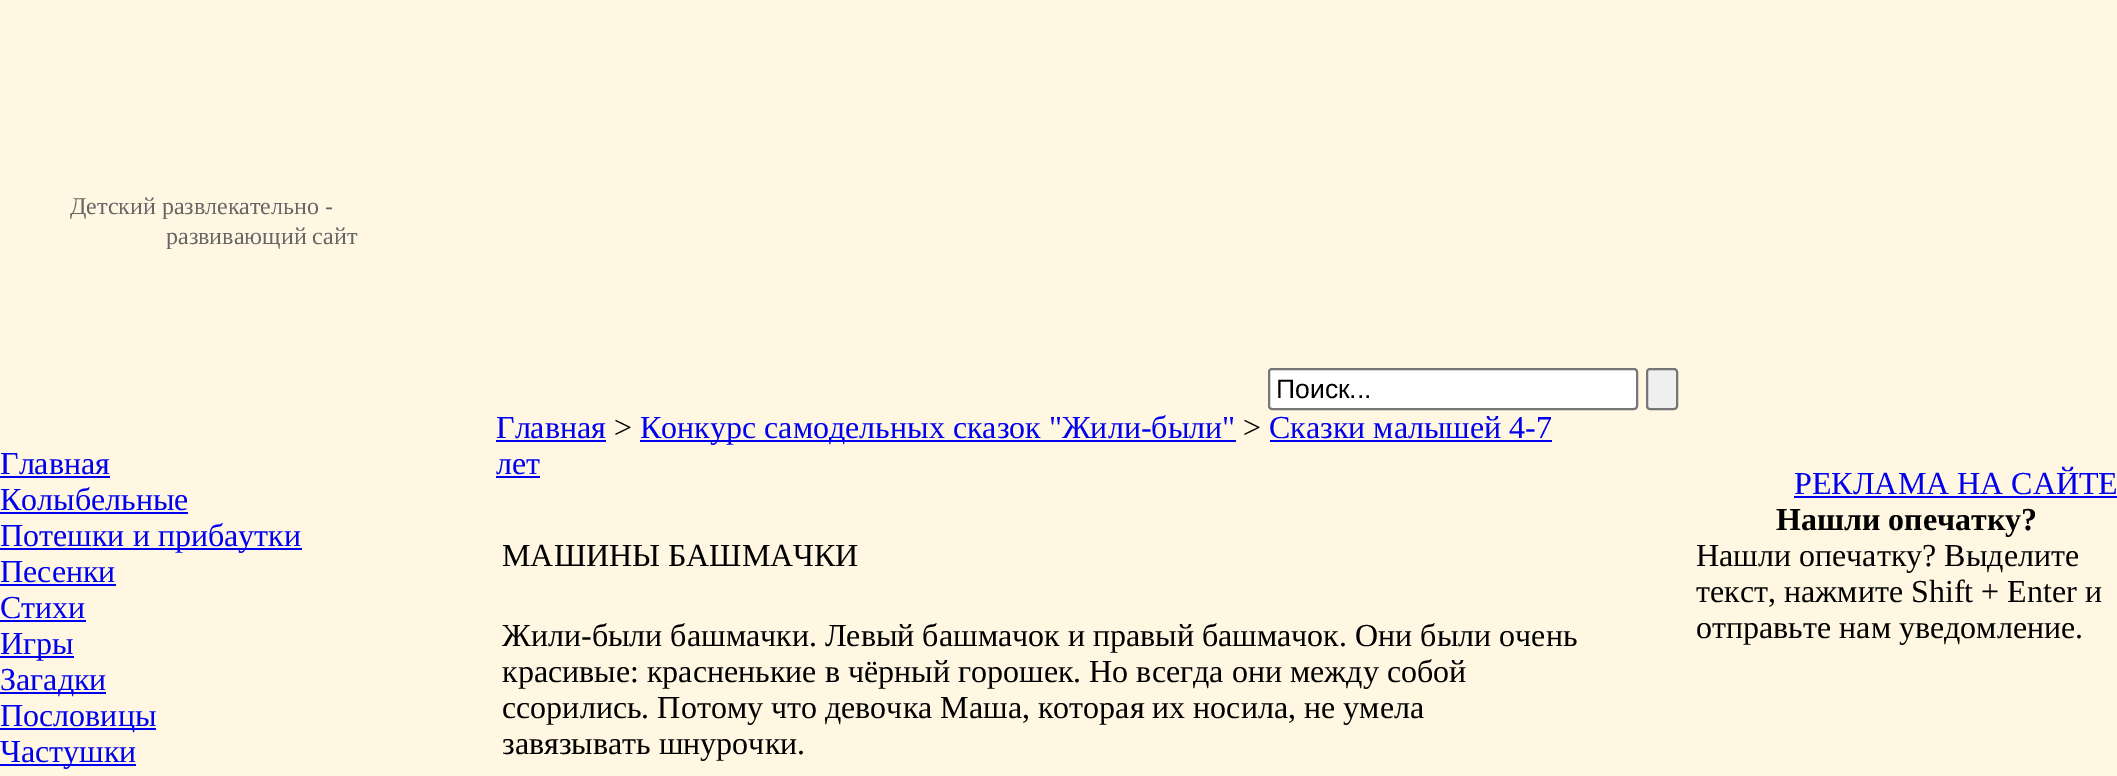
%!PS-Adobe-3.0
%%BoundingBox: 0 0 2117 776
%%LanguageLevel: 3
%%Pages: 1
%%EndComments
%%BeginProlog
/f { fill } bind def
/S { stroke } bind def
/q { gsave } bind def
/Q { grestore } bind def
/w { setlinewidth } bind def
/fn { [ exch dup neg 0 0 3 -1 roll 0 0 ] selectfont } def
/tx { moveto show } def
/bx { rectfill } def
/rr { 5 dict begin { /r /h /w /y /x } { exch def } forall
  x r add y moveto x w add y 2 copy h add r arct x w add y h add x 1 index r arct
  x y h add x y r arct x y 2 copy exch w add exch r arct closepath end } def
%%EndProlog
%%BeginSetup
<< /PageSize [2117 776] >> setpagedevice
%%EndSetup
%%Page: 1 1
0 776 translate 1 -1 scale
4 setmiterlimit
1 0.969 0.882 setrgbcolor
0 0 2117 776 bx
/LiberationSerif-Regular 24 fn
0.4 setgray
(Детский развлекательно -) 70 214 tx
(развивающий сайт) 166 244 tx
1 setgray
1269 369 368 40 3 rr q f Q
0.463 setgray
2 w
S
/LiberationSans-Regular 26.5 fn
0 setgray
(Поиск...) 1276 398 tx
0.937 setgray
1647 369 30 40 3 rr q f Q
0.463 setgray
S
/LiberationSerif-Regular 32 fn
0 0 0.933 setrgbcolor
(Главная) 0 474 tx
0 476 110 2 bx
(Колыбельные) 0 510 tx
0 512 188 2 bx
0 548 302 2 bx
(Потешки и прибаутки) 0 546 tx
(Песенки) 0 582 tx
0 584 116 2 bx
(Стихи) 0 618 tx
0 620 86 2 bx
0 656 74 2 bx
(Игры) 0 654 tx
0 692 106 2 bx
(Загадки) 0 690 tx
0 728 156 2 bx
(Пословицы) 0 726 tx
0 764 136 2 bx
(Частушки) 0 762 tx
(Главная) 496 438 tx
496 440 110 2 bx
0 setgray
(>) 614 438 tx
0 0 0.933 setrgbcolor
640 440 596 2 bx
(Конкурс самодельных сказок "Жили-были") 640 438 tx
0 setgray
(>) 1243 438 tx
0 0 0.933 setrgbcolor
(Сказки малышей 4-7) 1269 438 tx
1270 440 282 2 bx
(лет) 496 474 tx
496 476 44 2 bx
0 setgray
(МАШИНЫ БАШМАЧКИ) 502 566 tx
(Жили-были башмачки. Левый башмачок и правый башмачок. Они были очень) 502 646 tx
(красивые: красненькие в чёрный горошек. Но всегда они между собой) 502 682 tx
(ссорились. Потому что девочка Маша, которая их носила, не умела) 502 718 tx
(завязывать шнурочки.) 502 754 tx
0 0 0.933 setrgbcolor
(РЕКЛАМА НА САЙТЕ) 1794 494 tx
1794 496 323 2 bx
/LiberationSerif-Bold 32 fn
0 setgray
(Нашли опечатку?) 1776 530 tx
/LiberationSerif-Regular 32 fn
(Нашли опечатку? Выделите) 1696 566 tx
(текст, нажмите Shift + Enter и) 1696 602 tx
(отправьте нам уведомление.) 1696 638 tx
showpage
%%EOF
